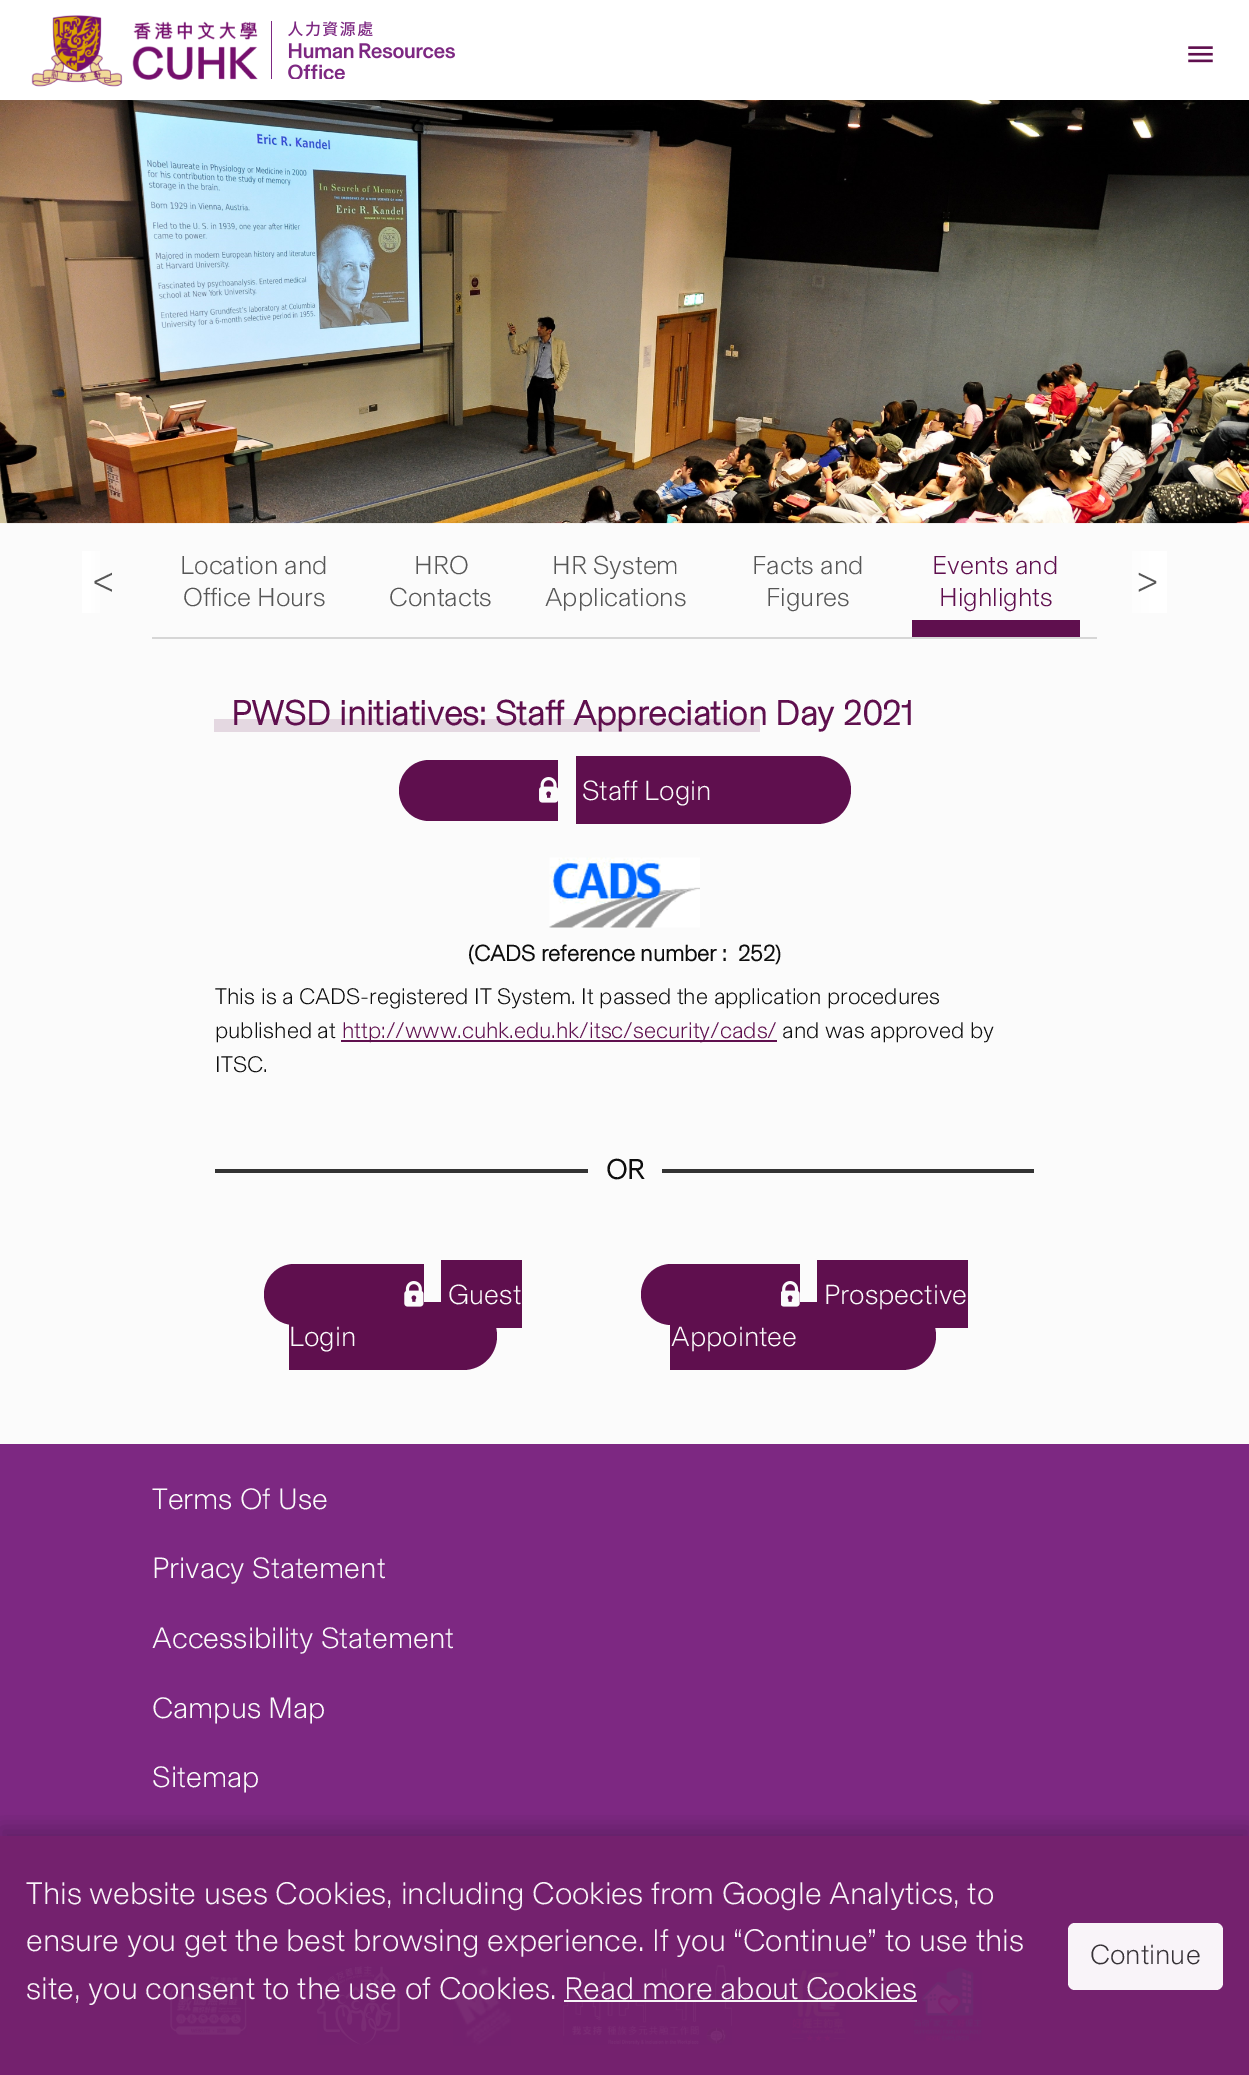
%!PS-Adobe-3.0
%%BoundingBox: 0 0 1249 2075
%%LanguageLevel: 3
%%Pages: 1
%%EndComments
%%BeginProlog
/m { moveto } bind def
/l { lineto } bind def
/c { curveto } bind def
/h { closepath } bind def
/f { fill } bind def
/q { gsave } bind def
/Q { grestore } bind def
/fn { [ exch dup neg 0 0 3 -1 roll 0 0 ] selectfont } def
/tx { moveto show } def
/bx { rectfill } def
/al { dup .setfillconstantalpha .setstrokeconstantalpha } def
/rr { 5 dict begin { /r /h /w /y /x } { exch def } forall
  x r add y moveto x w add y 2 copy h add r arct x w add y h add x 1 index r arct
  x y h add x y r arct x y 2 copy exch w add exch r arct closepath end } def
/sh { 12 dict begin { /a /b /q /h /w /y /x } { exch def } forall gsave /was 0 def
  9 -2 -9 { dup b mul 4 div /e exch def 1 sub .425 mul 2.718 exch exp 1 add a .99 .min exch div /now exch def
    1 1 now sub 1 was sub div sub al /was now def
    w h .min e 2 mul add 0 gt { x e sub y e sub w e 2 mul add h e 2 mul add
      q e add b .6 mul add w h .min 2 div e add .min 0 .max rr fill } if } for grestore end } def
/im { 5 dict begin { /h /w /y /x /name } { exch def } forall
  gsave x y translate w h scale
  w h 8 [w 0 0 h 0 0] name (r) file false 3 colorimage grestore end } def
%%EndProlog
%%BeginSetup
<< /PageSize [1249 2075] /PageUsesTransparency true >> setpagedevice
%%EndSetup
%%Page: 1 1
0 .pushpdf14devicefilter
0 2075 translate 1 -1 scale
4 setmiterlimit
0.984 setgray
0 0 1249 2075 bx
1 setgray
0 0 1249 100 bx
(image0.raw) 31 15 227 72 im
(image1.raw) 271 21 184 58 im
(image2.raw) 1188 46 25 17 im
(image3.raw) 0 100 1249 424 im
0.839 setgray
152 637 945 2 bx
q 82 551 m 100 551 l 100 613 l 82 613 l h clip newpath
<< /ShadingType 2 /ColorSpace /DeviceRGB /Coords [117 582 82 582] /Extend [true true] /Function << /FunctionType 3 /Domain [0 1] /Functions [<< /FunctionType 2 /Domain [0 1] /C0 [0.984 0.984 0.984] /C1 [1 1 1] /N 1 >> << /FunctionType 2 /Domain [0 1] /C0 [1 1 1] /C1 [1 1 1] /N 1 >>] /Bounds [0.8] /Encode [0 1 0 1] >> >> shfill Q
/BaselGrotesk-Light 40 fn
0.337 setgray
(<) 91 596 tx
/BaselGrotesk-Light 26.25 fn
(Location and) 180 574 tx
(Office Hours) 183 606 tx
(HRO) 414 574 tx
(Contacts) 389 606 tx
(HR System) 552 574 tx
(Applications) 545 606 tx
(Facts and) 752 574 tx
(Figures) 766 606 tx
0.373 0.059 0.306 setrgbcolor
912 620 168 17 bx
(Events and) 932 574 tx
(Highlights) 939 606 tx
q 1132 551 m 1167 551 l 1167 613 l 1132 613 l h clip newpath
<< /ShadingType 2 /ColorSpace /DeviceRGB /Coords [1097 582 1167 582] /Extend [true true] /Function << /FunctionType 3 /Domain [0 1] /Functions [<< /FunctionType 2 /Domain [0 1] /C0 [0.984 0.984 0.984] /C1 [1 1 1] /N 1 >> << /FunctionType 2 /Domain [0 1] /C0 [1 1 1] /C1 [1 1 1] /N 1 >>] /Bounds [0.8] /Encode [0 1 0 1] >> >> shfill Q
/BaselGrotesk-Light 40 fn
0.337 setgray
(>) 1134 596 tx
0.894 0.847 0.882 setrgbcolor
214 719 546 13 bx
/BaselGrotesk-Bold 35 fn
0.373 0.059 0.306 setrgbcolor
(PWSD initiatives: Staff Appreciation Day 2021) 231 725 tx
429.5 760 m 558 760 l 558 821 l 429.5 821 l 412.5 821 399 807.5 399 790.5 c 399 773.5 412.5 760 429.5 760 c h f
(image4.raw) 539 777 19 26 im
576 756 m 817 756 l 836 756 851 771 851 790 c 851 809 836 824 817 824 c 576 824 l h f
/BaselGrotesk-Light 28 fn
0.984 setgray
(Staff Login) 582 800 tx
(image5.raw) 549 857 151 71 im
/BaselGrotesk-Bold 22.75 fn
0.051 setgray
(\(CADS reference number :  252\)) 468 961 tx
/BaselGrotesk-Light 22.75 fn
(This is a CADS-registered IT System. It passed the application procedures) 215 1004 tx
(published at) 215 1038 tx
0.373 0.059 0.306 setrgbcolor
341 1040 436 2 bx
(http://www.cuhk.edu.hk/itsc/security/cads/) 342 1038 tx
0.051 setgray
(and was approved by) 782 1038 tx
(ITSC.) 215 1072 tx
0.2 setgray
215 1169 373 4 bx
/BaselGrotesk-Bold 28 fn
0.051 setgray
(OR) 606 1179 tx
0.2 setgray
662 1169 372 4 bx
0.373 0.059 0.306 setrgbcolor
294.5 1264 m 424 1264 l 424 1325 l 294.5 1325 l 277.5 1325 264 1311.5 264 1294.5 c 264 1277.5 277.5 1264 294.5 1264 c h f
441 1260 81 68 bx
289 1302 m 463 1302 l 482 1302 497 1317 497 1336 c 497 1355 482 1370 463 1370 c 289 1370 l h f
(image6.raw) 404 1281 20 26 im
/BaselGrotesk-Light 28 fn
0.984 setgray
(Guest) 448 1304 tx
(Login) 289 1346 tx
0.373 0.059 0.306 setrgbcolor
671.5 1264 m 800 1264 l 800 1325 l 671.5 1325 l 654.5 1325 641 1311.5 641 1294.5 c 641 1277.5 654.5 1264 671.5 1264 c h f
817 1260 151 68 bx
670 1302 m 902 1302 l 921 1302 936 1317 936 1336 c 936 1355 921 1370 902 1370 c 670 1370 l h f
(image7.raw) 781 1281 19 26 im
0.984 setgray
(Prospective) 824 1304 tx
(Appointee) 671 1346 tx
0.49 0.157 0.51 setrgbcolor
0 1444 1249 392 bx
0.455 0.129 0.431 setrgbcolor
0 1836 1249 239 bx
/BaselGrotesk-Light 29.75 fn
0.984 setgray
(Terms Of Use) 152 1509 tx
(Privacy Statement) 152 1578 tx
(Accessibility Statement) 152 1648 tx
(Campus Map) 152 1718 tx
(Sitemap) 152 1787 tx
(image8.raw) 170 1976 77 59 im
(image9.raw) 317 1966 83 79 im
(image10.raw) 453 1965 58 81 im
(image11.raw) 563 1965 169 80 im
(image12.raw) 792 1969 54 73 im
(image13.raw) 913 1967 69 74 im
q
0 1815 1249 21 rectclip
0.024 0.008 0.027 setrgbcolor
0 1827 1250 240 0 9.5 0.2 sh
Q
/BaselGrotesk-Light 31.5 fn
0.976 0.957 0.976 setrgbcolor
(This website uses Cookies, including Cookies from Google Analytics, to) 26 1904 tx
(ensure you get the best browsing experience. If you “Continue” to use this) 26 1951 tx
(site, you consent to the use of Cookies. Read more about Cookies) 26 1999 tx
0.95 al
1 setgray
564 2000 353 2 bx
1 al
0.976 0.957 0.976 setrgbcolor
1068 1923 155 67 7 rr f
/BaselGrotesk-Light 28 fn
0.216 0.196 0.216 setrgbcolor
(Continue) 1090 1964 tx
.poppdf14devicefilter showpage
%%EOF
